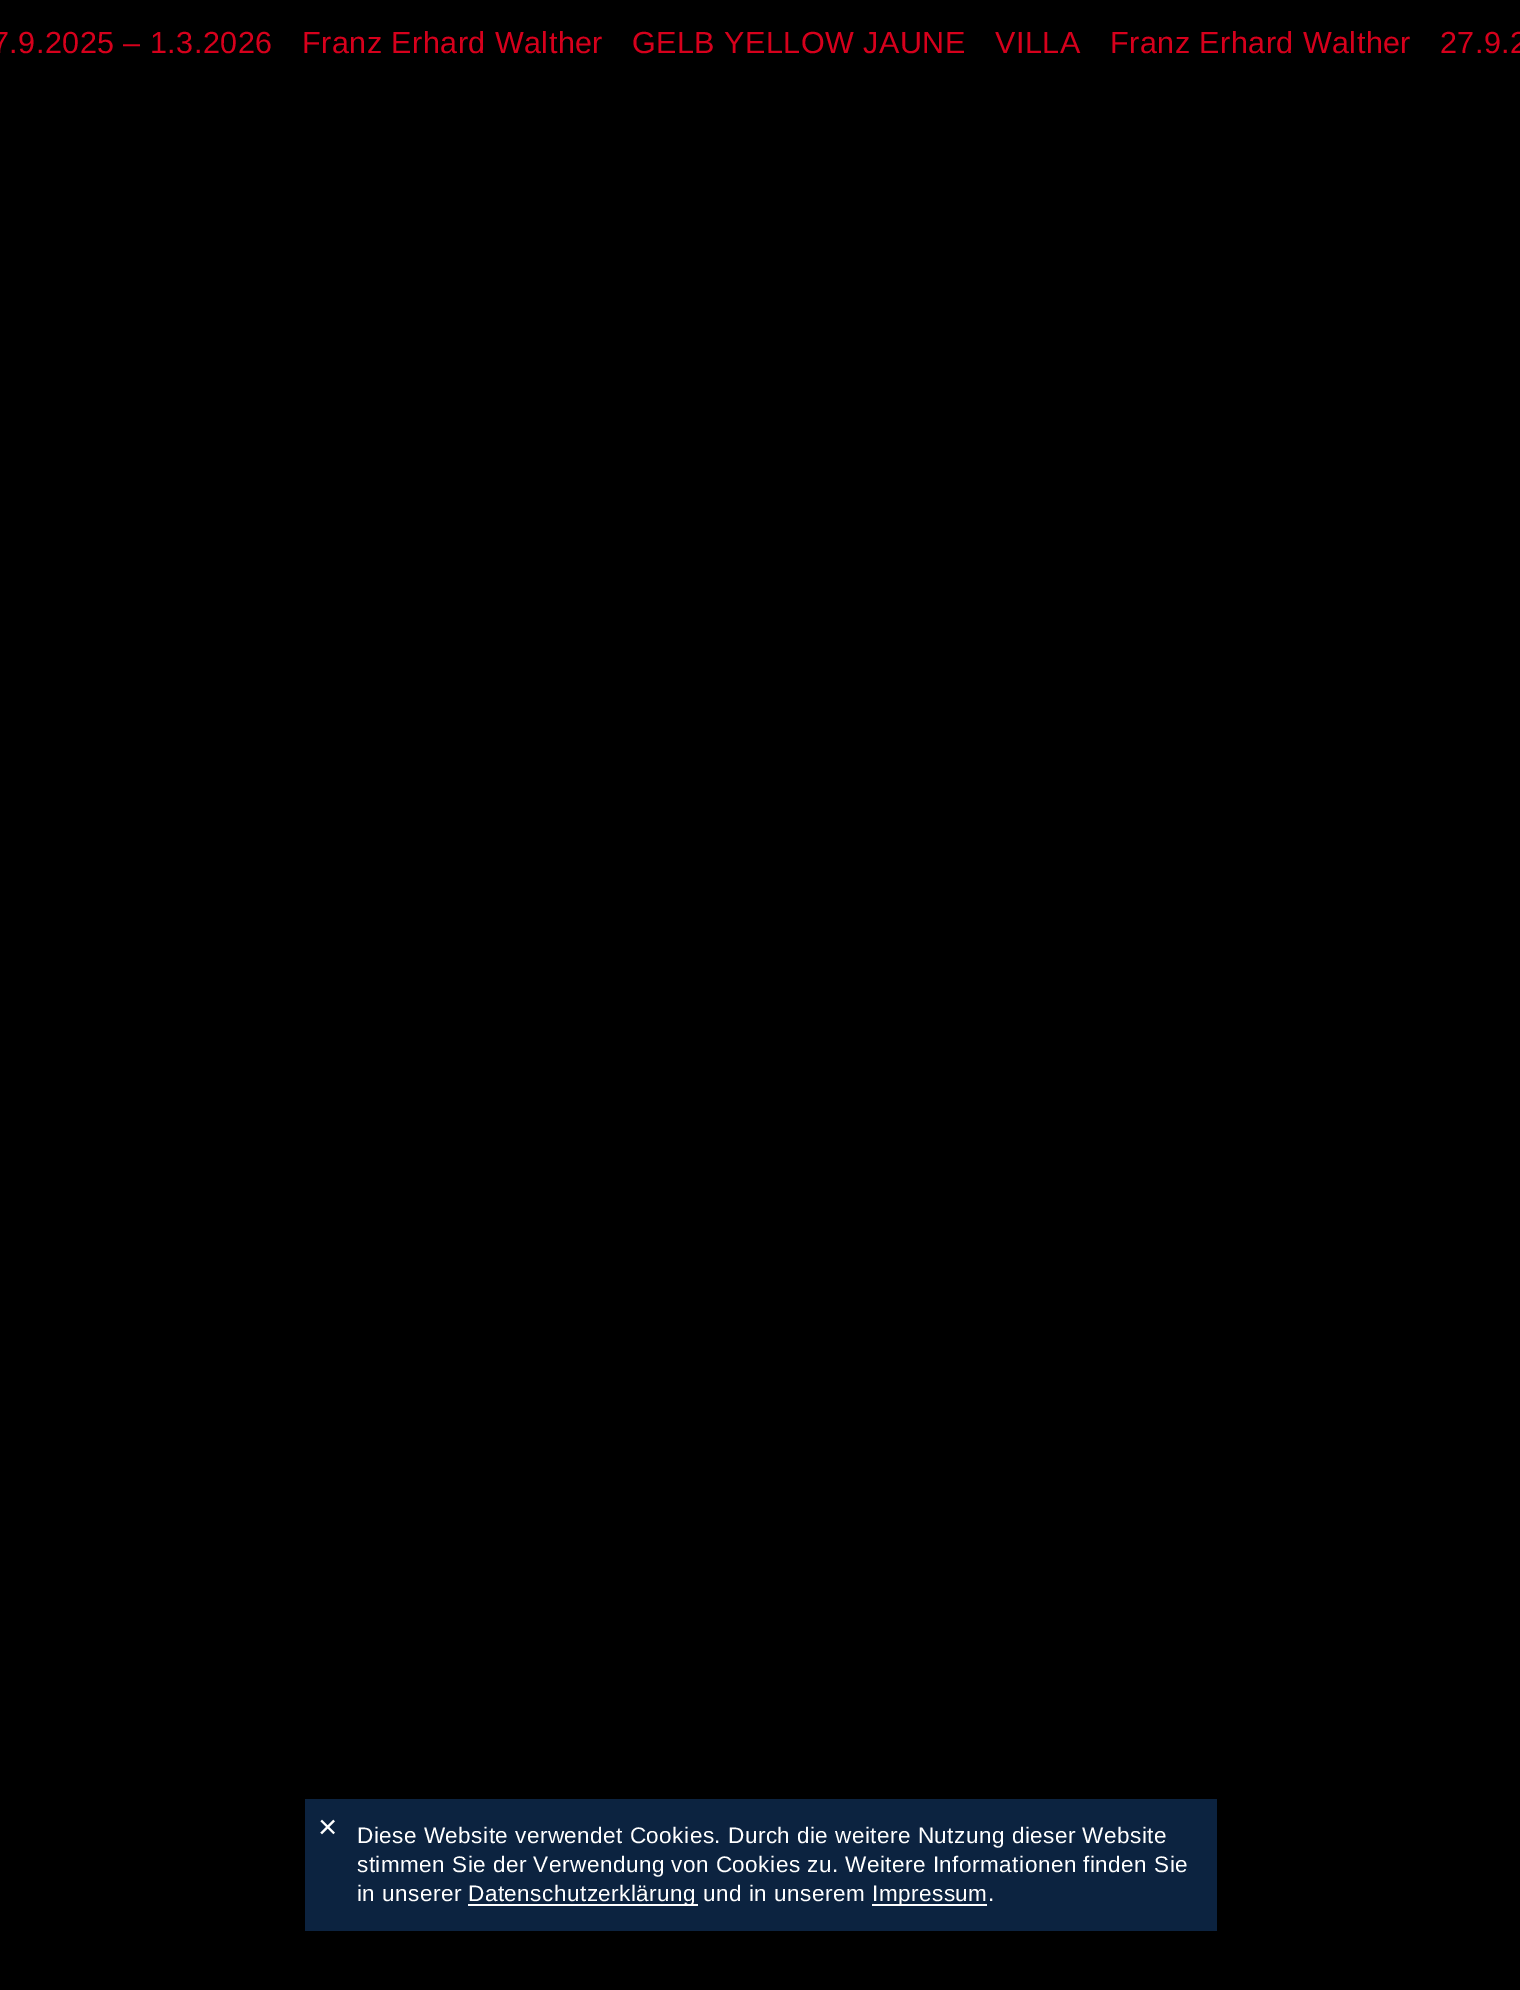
%!PS-Adobe-3.0
%%BoundingBox: 0 0 1520 1990
%%LanguageLevel: 3
%%Pages: 1
%%EndComments
%%BeginProlog
/m { moveto } bind def
/fn { [ exch dup neg 0 0 3 -1 roll 0 0 ] selectfont } def
/bx { rectfill } def
%%EndProlog
%%BeginSetup
<< /PageSize [1520 1990] >> setpagedevice
%%EndSetup
%%Page: 1 1
0 1990 translate 1 -1 scale
4 setmiterlimit
0 setgray
0 0 1520 1990 bx
/LiberationSans-Regular 30.5 fn
0.839 0 0.11 setrgbcolor
-8 53 m 0.48 0 (7.9.2025 – 1.3.2026) ashow
302 53 m 0.48 0 (Franz Erhard Walther) ashow
632 53 m 0.48 0 (GELB YELLOW JAUNE) ashow
995 53 m 0.48 0 (VILLA) ashow
1110 53 m 0.48 0 (Franz Erhard Walther) ashow
1440 53 m 0.48 0 (27.9.2) ashow
0.047 0.137 0.251 setrgbcolor
305 1799 912 132 bx
/LiberationSans-Regular 33 fn
1 setgray
318 1838 m 0.48 0 (×) ashow
/LiberationSans-Regular 22.5 fn
357 1843 m 0.48 0 (Diese Website verwendet Cookies. Durch die weitere Nutzung dieser Website) ashow
357 1872 m 0.48 0 (stimmen Sie der Verwendung von Cookies zu. Weitere Informationen finden Sie) ashow
357 1901 m 0.48 0 (in unserer) ashow
468 1904 230 2 bx
468 1901 m 0.48 0 (Datenschutzerklärung und in unserem) ashow
872 1904 115 2 bx
872 1901 m 0.48 0 (Impressum.) ashow
showpage
%%EOF
